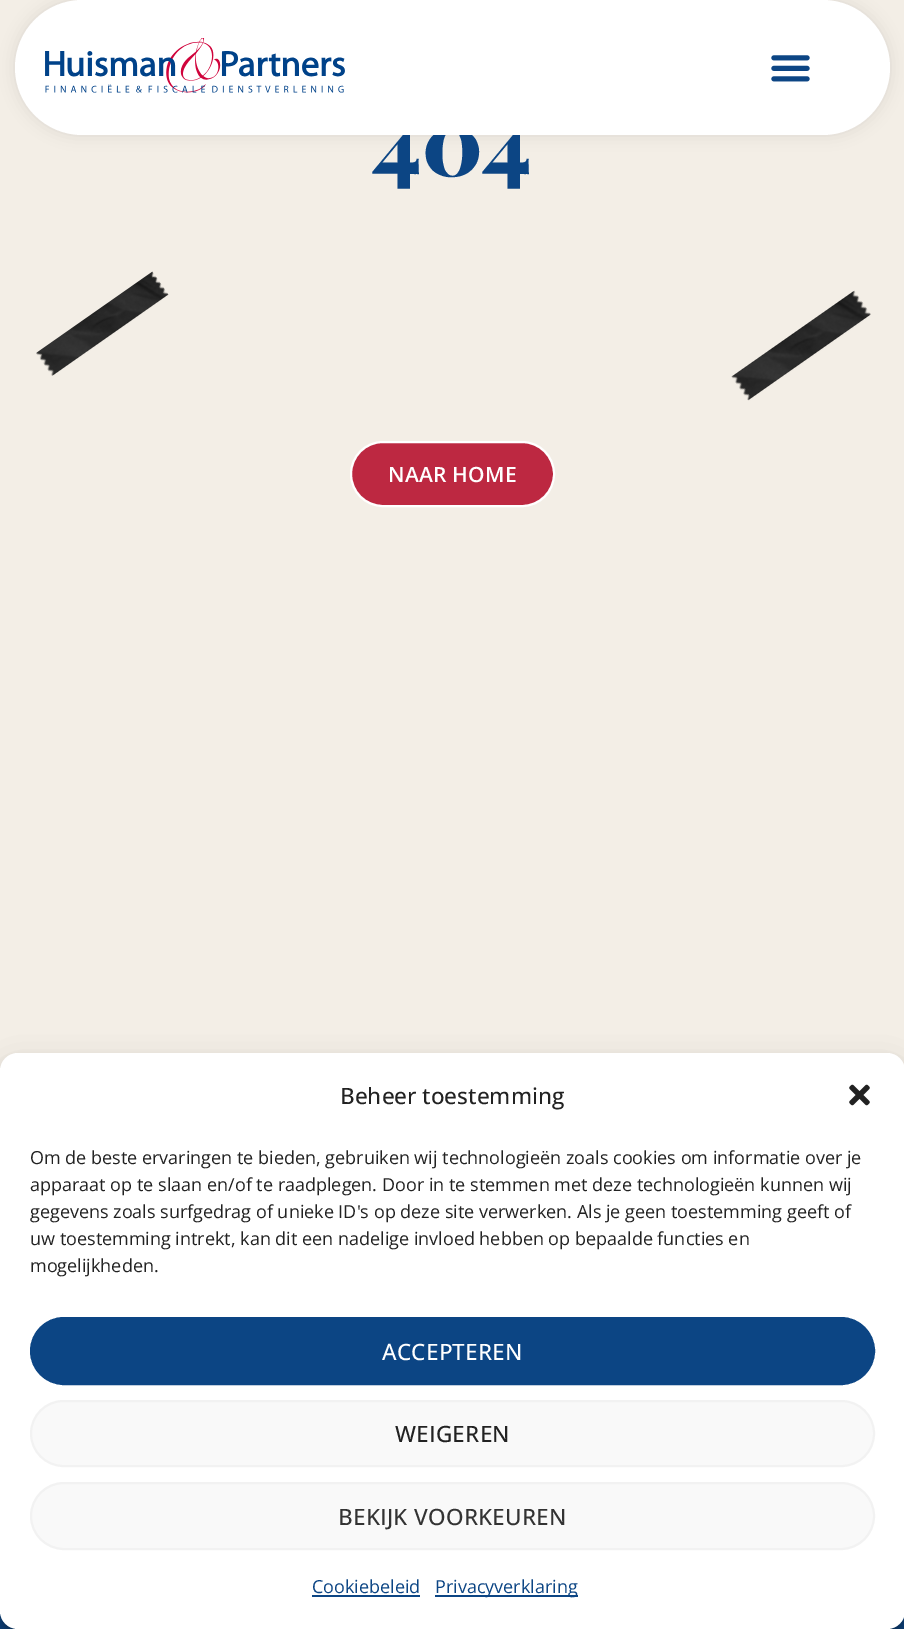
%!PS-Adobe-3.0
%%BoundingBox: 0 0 904 1629
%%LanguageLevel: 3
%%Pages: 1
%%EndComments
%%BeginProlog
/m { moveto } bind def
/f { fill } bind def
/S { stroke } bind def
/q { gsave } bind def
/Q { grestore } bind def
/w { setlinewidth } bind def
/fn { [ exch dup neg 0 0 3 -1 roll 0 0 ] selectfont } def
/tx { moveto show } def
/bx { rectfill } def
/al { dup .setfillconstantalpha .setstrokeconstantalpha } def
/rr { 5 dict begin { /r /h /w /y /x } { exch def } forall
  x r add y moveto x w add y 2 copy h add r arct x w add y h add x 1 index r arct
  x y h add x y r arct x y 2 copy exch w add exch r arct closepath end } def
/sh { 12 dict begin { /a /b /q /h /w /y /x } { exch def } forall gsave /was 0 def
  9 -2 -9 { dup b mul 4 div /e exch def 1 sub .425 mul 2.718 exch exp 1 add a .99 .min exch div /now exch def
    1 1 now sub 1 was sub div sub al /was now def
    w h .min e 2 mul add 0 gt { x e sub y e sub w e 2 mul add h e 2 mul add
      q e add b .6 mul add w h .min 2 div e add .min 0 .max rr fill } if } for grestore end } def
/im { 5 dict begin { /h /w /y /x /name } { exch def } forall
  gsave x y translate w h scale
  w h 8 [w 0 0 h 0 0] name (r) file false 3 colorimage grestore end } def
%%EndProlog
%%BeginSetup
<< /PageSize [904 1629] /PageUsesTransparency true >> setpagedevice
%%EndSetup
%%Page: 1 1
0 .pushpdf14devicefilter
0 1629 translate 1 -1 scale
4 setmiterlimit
0.953 0.933 0.902 setrgbcolor
0 0 904 1629 bx
0 setgray
15 0 875 135 67.5 7.5 0.09 sh
/PlayfairDisplay-Black 90 fn
0.047 0.271 0.518 setrgbcolor
(404) 372 176 tx
1 setgray
15 0 875 135 67.5 rr f
(image0.raw) 45 38 300 55 im
(image1.raw) 771 55 39 27 im
(image2.raw) 36 271 133 105 im
(image3.raw) 731 290 140 111 im
0.741 0.157 0.255 setrgbcolor
351 442 203 64 32 rr q f Q
1 setgray
2 w
S
/OpenSans-SemiBold 21 fn
388 482 m 0.25 0 (NAAR HOME) ashow
0.047 0.271 0.518 setrgbcolor
0 1611 904 18 bx
0 setgray
0 1062 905 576 18 4.5 0.23 sh
0 1068 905 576 18 15 0.19 sh
1 setgray
0 1053 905 576 18 rr f
/OpenSans-Medium 22.5 fn
0.133 setgray
(Beheer toestemming) 340 1104 tx
(image4.raw) 849 1084 21 22 im
/OpenSans-Regular 18 fn
(Om de beste ervaringen te bieden, gebruiken wij technologieën zoals cookies om informatie over je) 30 1164 tx
(apparaat op te slaan en/of te raadplegen. Door in te stemmen met deze technologieën kunnen wij) 30 1191 tx
(gegevens zoals surfgedrag of unieke ID's op deze site verwerken. Als je geen toestemming geeft of) 30 1218 tx
(uw toestemming intrekt, kan dit een nadelige invloed hebben op bepaalde functies en) 30 1245 tx
(mogelijkheden.) 30 1272 tx
0.047 0.271 0.518 setrgbcolor
31 1318 843 66 33 rr q f Q
S
/OpenSans-Medium 22.5 fn
1 setgray
382 1360 m 0.25 0 (ACCEPTEREN) ashow
0.976 setgray
31 1401 843 65 32.5 rr q f Q
0.949 setgray
S
0.133 setgray
395 1442 m 0.25 0 (WEIGEREN) ashow
0.976 setgray
31 1483 843 66 33 rr q f Q
0.949 setgray
S
0.2 setgray
338 1525 m 0.25 0 (BEKIJK VOORKEUREN) ashow
/OpenSans-Regular 18 fn
0.047 0.271 0.518 setrgbcolor
(Cookiebeleid) 312 1593 tx
312 1595 108 2 bx
435 1595 143 2 bx
(Privacyverklaring) 435 1593 tx
.poppdf14devicefilter showpage
%%EOF
